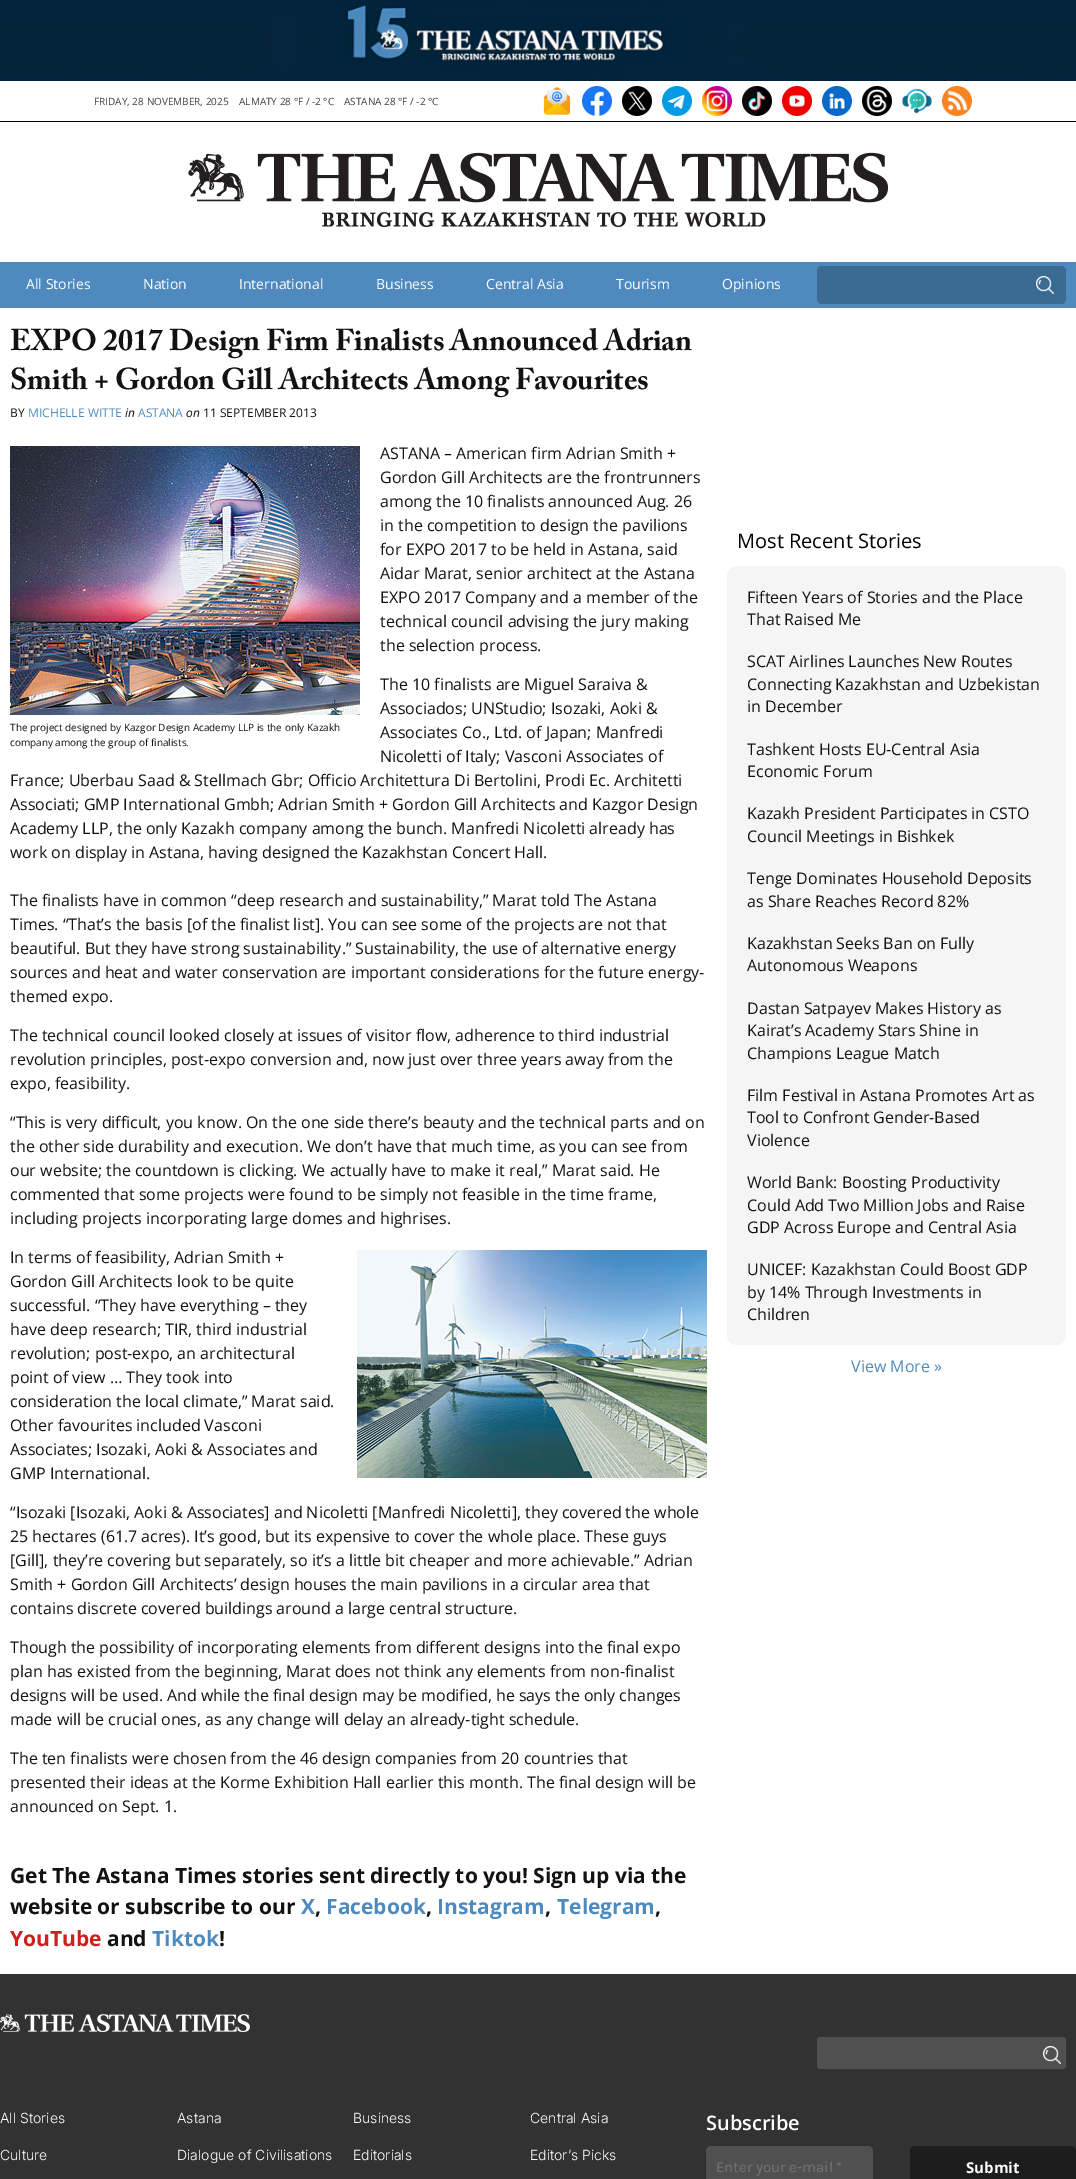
%!PS-Adobe-3.0
%%BoundingBox: 0 0 1076 2179
%%LanguageLevel: 3
%%Pages: 1
%%EndComments
%%BeginProlog
/f { fill } bind def
/fn { [ exch dup neg 0 0 3 -1 roll 0 0 ] selectfont } def
/tx { moveto show } def
/bx { rectfill } def
/rr { 5 dict begin { /r /h /w /y /x } { exch def } forall
  x r add y moveto x w add y 2 copy h add r arct x w add y h add x 1 index r arct
  x y h add x y r arct x y 2 copy exch w add exch r arct closepath end } def
/im { 5 dict begin { /h /w /y /x /name } { exch def } forall
  gsave x y translate w h scale
  w h 8 [w 0 0 h 0 0] name (r) file false 3 colorimage grestore end } def
%%EndProlog
%%BeginSetup
<< /PageSize [1076 2179] >> setpagedevice
%%EndSetup
%%Page: 1 1
0 2179 translate 1 -1 scale
4 setmiterlimit
1 setgray
0 0 1076 2179 bx
(image0.raw) 0 0 1076 81 im
/OpenSans-Regular 10 fn
0.243 setgray
(FRIDAY, 28 NOVEMBER, 2025) 94 105 tx
(ALMATY 28 °F / -2 °C) 239 105 tx
(ASTANA 28 °F / -2 °C) 344 105 tx
(image1.raw) 543 87 28 28 im
(image2.raw) 582 86 30 30 im
(image3.raw) 622 86 30 30 im
(image4.raw) 662 86 30 30 im
(image5.raw) 702 86 30 30 im
(image6.raw) 742 86 30 30 im
(image7.raw) 782 86 30 30 im
(image8.raw) 822 86 30 30 im
(image9.raw) 862 86 30 30 im
(image10.raw) 902 88 30 26 im
(image11.raw) 942 86 30 30 im
0 setgray
0 121 1076 1 bx
(image12.raw) 188 152 700 75 im
0.306 0.541 0.745 setrgbcolor
0 262 1076 46 bx
/OpenSans-Regular 14 fn
1 setgray
(All Stories) 26 289 tx
(Nation) 143 289 tx
(International) 239 289 tx
(Business) 376 289 tx
(Central Asia) 486 289 tx
(Tourism) 616 289 tx
(Opinions) 722 289 tx
0.231 0.416 0.573 setrgbcolor
817 266 249 38 5 rr f
(image13.raw) 1036 276 18 18 im
/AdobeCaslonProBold-Bold 30 fn
0.071 setgray
(EXPO 2017 Design Firm Finalists Announced Adrian) 10 350 tx
(Smith + Gordon Gill Architects Among Favourites) 10 389 tx
/OpenSans-Regular 12 fn
(BY) 10 417 tx
0.306 0.541 0.745 setrgbcolor
(MICHELLE WITTE) 28 417 tx
/OpenSans-Italic 12 fn
0.071 setgray
(in) 125 417 tx
/OpenSans-Regular 12 fn
0.306 0.541 0.745 setrgbcolor
(ASTANA) 138 417 tx
/OpenSans-Italic 12 fn
0.071 setgray
(on) 186 417 tx
/OpenSans-Regular 12 fn
(11 SEPTEMBER 2013) 203 417 tx
/OpenSans-Regular 16 fn
(ASTANA – American firm Adrian Smith +) 380 459 tx
(Gordon Gill Architects are the frontrunners) 380 483 tx
(among the 10 finalists announced Aug. 26) 380 507 tx
(in the competition to design the pavilions) 380 531 tx
(for EXPO 2017 to be held in Astana, said) 380 555 tx
(Aidar Marat, senior architect at the Astana) 380 579 tx
(EXPO 2017 Company and a member of the) 380 603 tx
(technical council advising the jury making) 380 627 tx
(the selection process.) 380 651 tx
(The 10 finalists are Miguel Saraiva &) 380 690 tx
(Associados; UNStudio; Isozaki, Aoki &) 380 714 tx
(Associates Co., Ltd. of Japan; Manfredi) 380 738 tx
(Nicoletti of Italy; Vasconi Associates of) 380 762 tx
(France; Uberbau Saad & Stellmach Gbr; Officio Architettura Di Bertolini, Prodi Ec. Architetti) 10 786 tx
(Associati; GMP International Gmbh; Adrian Smith + Gordon Gill Architects and Kazgor Design) 10 810 tx
(Academy LLP, the only Kazakh company among the bunch. Manfredi Nicoletti already has) 10 834 tx
(work on display in Astana, having designed the Kazakhstan Concert Hall.) 10 858 tx
(The finalists have in common “deep research and sustainability,” Marat told The Astana) 10 906 tx
(Times. “That’s the basis [of the finalist list]. You can see some of the projects are not that) 10 930 tx
(beautiful. But they have strong sustainability.” Sustainability, the use of alternative energy) 10 954 tx
(sources and heat and water conservation are important considerations for the future energy-) 10 978 tx
(themed expo.) 10 1002 tx
(image14.raw) 10 446 350 269 im
/OpenSans-Regular 10 fn
(The project designed by Kazgor Design Academy LLP is the only Kazakh) 10 731 tx
(company among the group of finalists.) 10 746 tx
/OpenSans-Regular 16 fn
(The technical council looked closely at issues of visitor flow, adherence to third industrial) 10 1041 tx
(revolution principles, post-expo conversion and, now just over three years away from the) 10 1065 tx
(expo, feasibility.) 10 1089 tx
(“This is very difficult, you know. On the one side there’s beauty and the technical parts and on) 10 1128 tx
(the other side durability and execution. We don’t have that much time, as you can see from) 10 1152 tx
(our website; the countdown is clicking. We actually have to make it real,” Marat said. He) 10 1176 tx
(commented that some projects were found to be simply not feasible in the time frame,) 10 1200 tx
(including projects incorporating large domes and highrises.) 10 1224 tx
(In terms of feasibility, Adrian Smith +) 10 1263 tx
(image15.raw) 357 1250 350 228 im
(Gordon Gill Architects look to be quite) 10 1287 tx
(successful. “They have everything – they) 10 1311 tx
(have deep research; TIR, third industrial) 10 1335 tx
(revolution; post-expo, an architectural) 10 1359 tx
(point of view … They took into) 10 1383 tx
(consideration the local climate,” Marat said.) 10 1407 tx
(Other favourites included Vasconi) 10 1431 tx
(Associates; Isozaki, Aoki & Associates and) 10 1455 tx
(GMP International.) 10 1479 tx
(“Isozaki [Isozaki, Aoki & Associates] and Nicoletti [Manfredi Nicoletti], they covered the whole) 10 1518 tx
(25 hectares \(61.7 acres\). It’s good, but its expensive to cover the whole place. These guys) 10 1542 tx
([Gill], they’re covering but separately, so it’s a little bit cheaper and more achievable.” Adrian) 10 1566 tx
(Smith + Gordon Gill Architects’ design houses the main pavilions in a circular area that) 10 1590 tx
(contains discrete covered buildings around a large central structure.) 10 1614 tx
(Though the possibility of incorporating elements from different designs into the final expo) 10 1653 tx
(plan has existed from the beginning, Marat does not think any elements from non-finalist) 10 1677 tx
(designs will be used. And while the final design may be modified, he says the only changes) 10 1701 tx
(made will be crucial ones, as any change will delay an already-tight schedule.) 10 1725 tx
(The ten finalists were chosen from the 46 design companies from 20 countries that) 10 1764 tx
(presented their ideas at the Korme Exhibition Hall earlier this month. The final design will be) 10 1788 tx
(announced on Sept. 1.) 10 1812 tx
/OpenSans-Bold 21 fn
(Get The Astana Times stories sent directly to you! Sign up via the) 10 1883 tx
(website or subscribe to our) 10 1914 tx
0.306 0.541 0.745 setrgbcolor
(X) 301 1914 tx
0.071 setgray
(,) 315 1914 tx
0.306 0.541 0.745 setrgbcolor
(Facebook) 326 1914 tx
0.071 setgray
(,) 426 1914 tx
0.306 0.541 0.745 setrgbcolor
(Instagram) 437 1914 tx
0.071 setgray
(,) 545 1914 tx
0.306 0.541 0.745 setrgbcolor
(Telegram) 557 1914 tx
0.071 setgray
(,) 655 1914 tx
0.804 0.125 0.122 setrgbcolor
(YouTube) 10 1946 tx
0.071 setgray
(and) 107 1946 tx
0.306 0.541 0.745 setrgbcolor
(Tiktok) 152 1946 tx
0.071 setgray
(!) 219 1946 tx
/OpenSans-Regular 20 fn
0 setgray
(Most Recent Stories) 737 548 tx
0.961 setgray
727 566 339 779 10 rr f
/OpenSans-Regular 16 fn
0.071 setgray
(Fifteen Years of Stories and the Place) 747 603 tx
(That Raised Me) 747 625 tx
(SCAT Airlines Launches New Routes) 747 667 tx
(Connecting Kazakhstan and Uzbekistan) 747 690 tx
(in December) 747 712 tx
(Tashkent Hosts EU-Central Asia) 747 755 tx
(Economic Forum) 747 777 tx
(Kazakh President Participates in CSTO) 747 819 tx
(Council Meetings in Bishkek) 747 842 tx
(Tenge Dominates Household Deposits) 747 884 tx
(as Share Reaches Record 82%) 747 907 tx
(Kazakhstan Seeks Ban on Fully) 747 949 tx
(Autonomous Weapons) 747 971 tx
(Dastan Satpayev Makes History as) 747 1014 tx
(Kairat’s Academy Stars Shine in) 747 1036 tx
(Champions League Match) 747 1059 tx
(Film Festival in Astana Promotes Art as) 747 1101 tx
(Tool to Confront Gender-Based) 747 1123 tx
(Violence) 747 1146 tx
(World Bank: Boosting Productivity) 747 1188 tx
(Could Add Two Million Jobs and Raise) 747 1211 tx
(GDP Across Europe and Central Asia) 747 1233 tx
(UNICEF: Kazakhstan Could Boost GDP) 747 1275 tx
(by 14% Through Investments in) 747 1298 tx
(Children) 747 1320 tx
0.306 0.541 0.745 setrgbcolor
(View More ») 851 1372 tx
0.196 setgray
0 1974 1076 205 bx
(image16.raw) 0 2014 250 18 im
0.314 setgray
817 2037 249 32 3 rr f
(image17.raw) 1043 2046 18 18 im
/Inter-Light 14 fn
1 setgray
(All Stories) 0 2123 tx
(Astana) 177 2123 tx
(Business) 353 2123 tx
(Central Asia) 530 2123 tx
(Culture) 0 2160 tx
(Dialogue of Civilisations) 177 2160 tx
(Editorials) 353 2160 tx
(Editor’s Picks) 530 2160 tx
/OpenSans-SemiBold 20 fn
(Subscribe) 706 2130 tx
0.314 setgray
706 2146 167 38 5 rr f
/Karla-Regular 15 fn
0.459 setgray
(Enter your e-mail *) 716 2172 tx
0.114 setgray
910 2146 166 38 5 rr f
/OpenSans-Bold 15 fn
1 setgray
(Submit) 966 2173 tx
showpage
%%EOF
